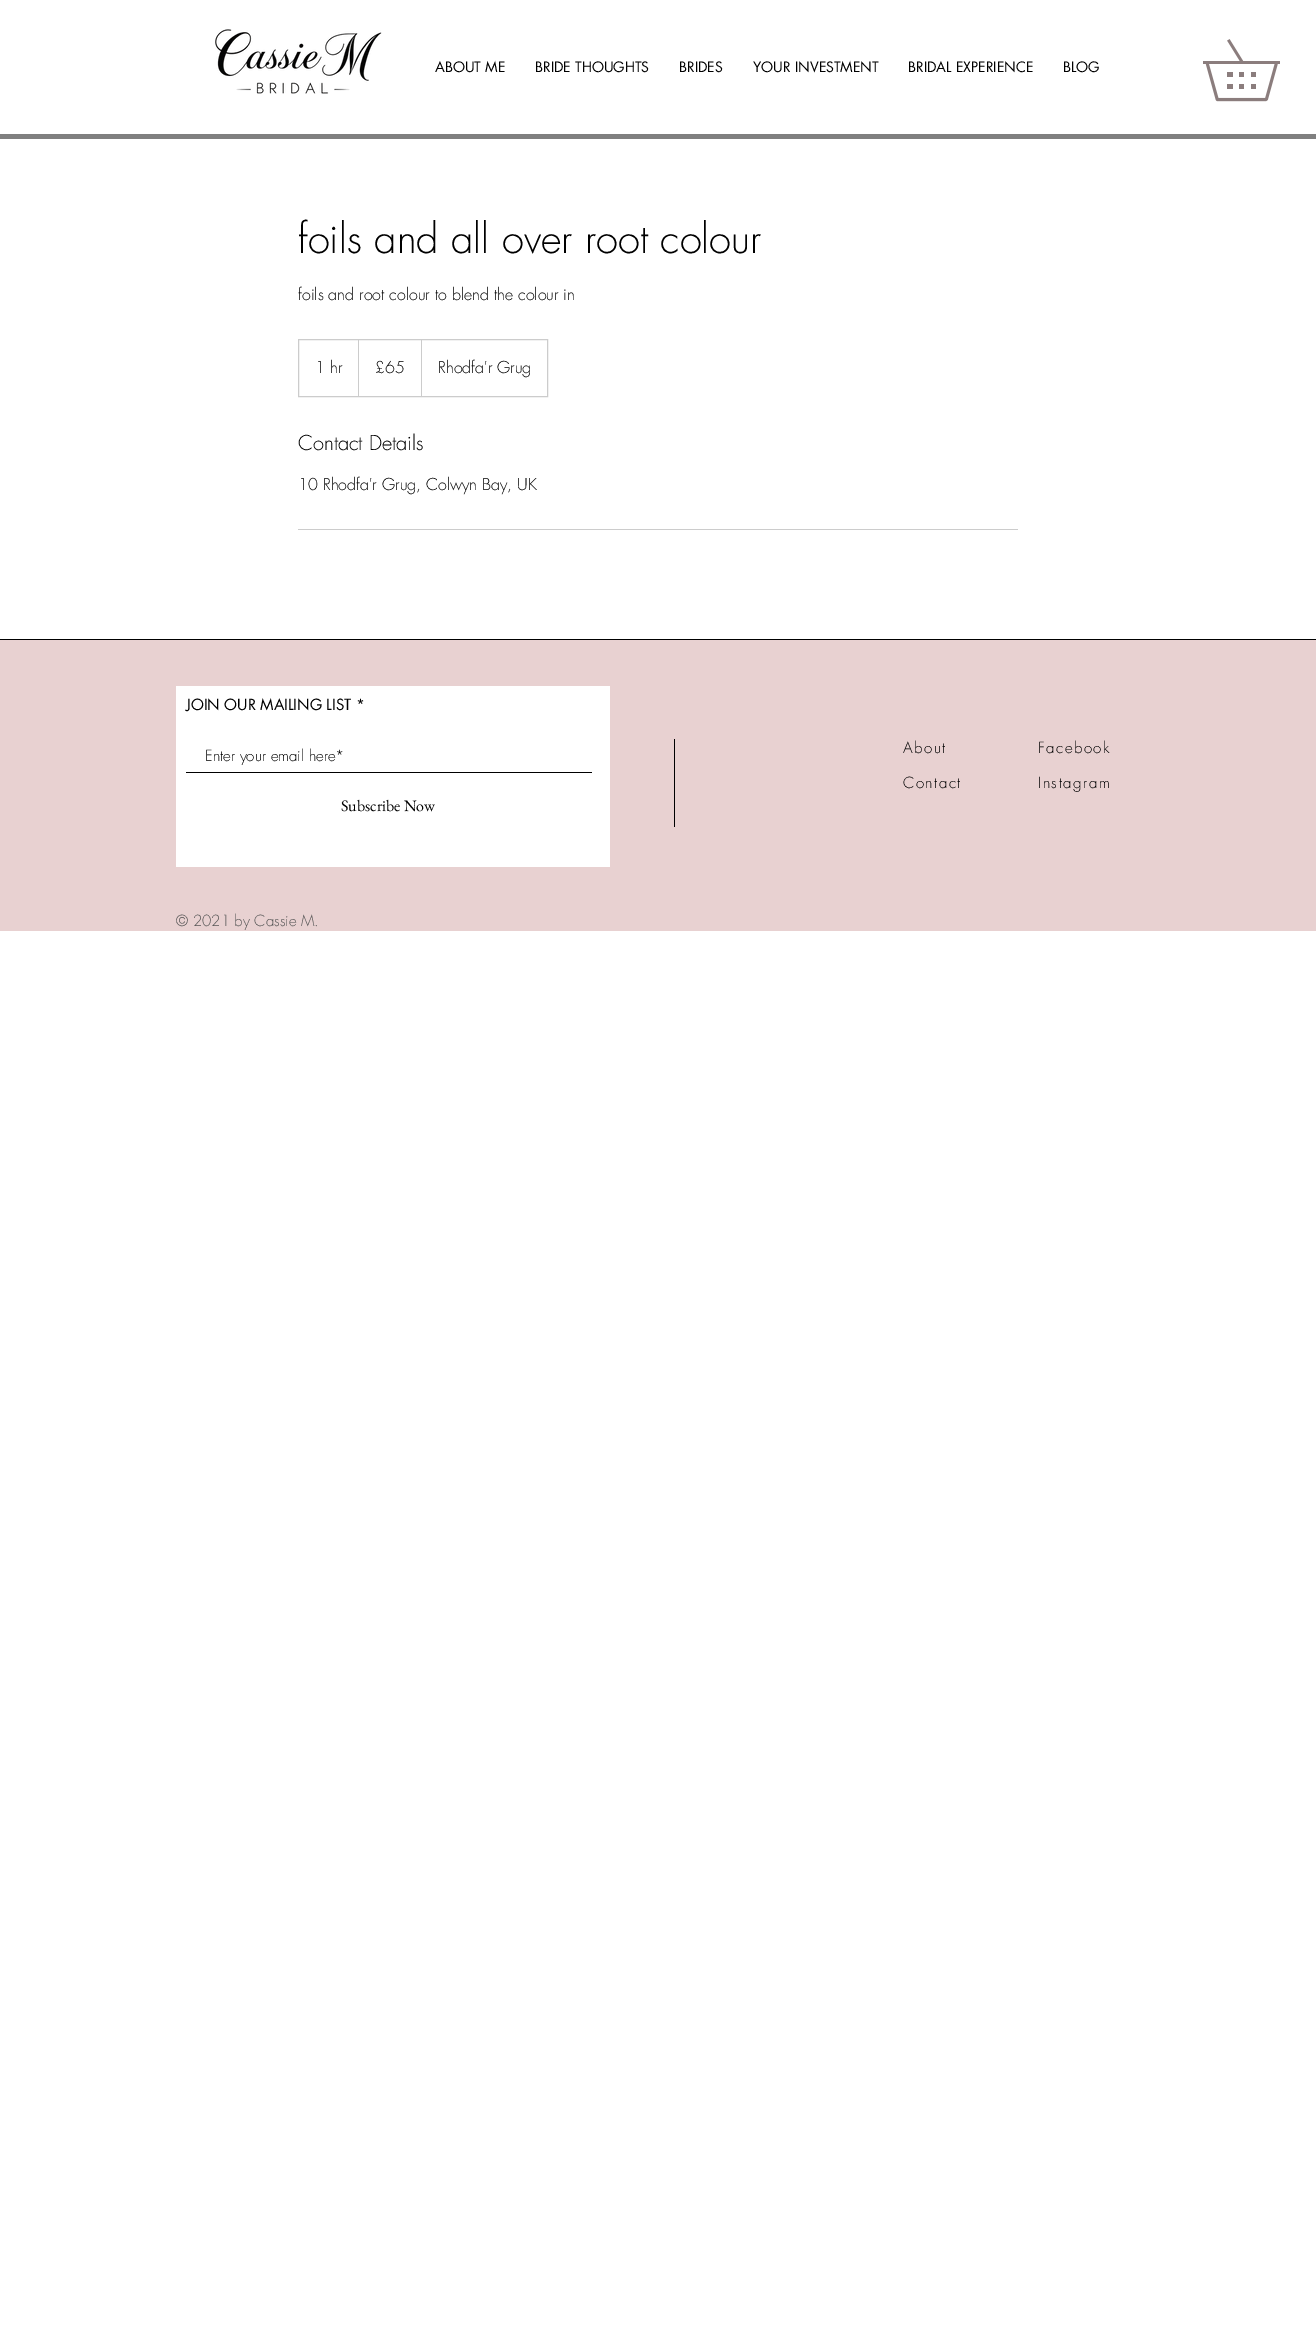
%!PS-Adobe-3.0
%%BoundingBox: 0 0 1316 2346
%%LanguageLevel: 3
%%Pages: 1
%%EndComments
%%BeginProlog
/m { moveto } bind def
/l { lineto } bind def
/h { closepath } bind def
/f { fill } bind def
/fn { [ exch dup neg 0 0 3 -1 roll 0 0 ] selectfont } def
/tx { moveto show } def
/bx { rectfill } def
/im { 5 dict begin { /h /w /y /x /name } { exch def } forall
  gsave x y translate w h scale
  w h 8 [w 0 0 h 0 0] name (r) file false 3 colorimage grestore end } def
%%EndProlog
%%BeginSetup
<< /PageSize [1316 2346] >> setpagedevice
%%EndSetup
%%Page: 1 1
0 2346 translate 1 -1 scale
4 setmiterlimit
1 setgray
0 0 1316 2346 bx
(image0.raw) 215 29 167 65 im
/futura-Regular 14 fn
0 setgray
(ABOUT ME) 435 72 tx
(BRIDE THOUGHTS) 535 72 tx
(BRIDES) 679 72 tx
(YOUR INVESTMENT) 753 72 tx
(BRIDAL EXPERIENCE) 908 72 tx
(BLOG) 1063 72 tx
(image1.raw) 1203 39 77 63 im
0.502 setgray
0 134 1316 5 bx
/futura-Light 40 fn
0 setgray
(foils and all over root colour) 298 253 tx
/futura-Light 16 fn
(foils and root colour to blend the colour in) 298 300 tx
0.8 setgray
298.5 339.5 249 57 rectstroke
0 setgray
(1 hr) 315 373 tx
0.8 setgray
358 396 m 358 339 l 359 340 l 359 396 l h f
0 setgray
(£65) 375 373 tx
0.8 setgray
421 396 m 421 339 l 422 340 l 422 396 l h f
0 setgray
(Rhodfa'r Grug) 438 373 tx
/futura-Light 20 fn
(Contact Details) 298 450 tx
/futura-Light 16 fn
(10 Rhodfa'r Grug, Colwyn Bay, UK) 298 490 tx
0.8 setgray
298 529 720 1 bx
0 setgray
0 639 1316 1 bx
0.91 0.82 0.82 setrgbcolor
0 640 1316 291 bx
1 setgray
176 686 434 181 bx
/futura-Regular 15 fn
0 setgray
(JOIN OUR MAILING LIST *) 186 710 tx
186 772 406 1 bx
/futura-Light 15 fn
(Enter your email here*) 205 761 tx
/EBGaramond-Regular 16 fn
(Subscribe Now) 341 811 tx
674 739 1 88 bx
/futura-Light 15 fn
903 753 m 1.5 0 (About) ashow
903 788 m 1.5 0 (Contact) ashow
1038 753 m 1.5 0 (Facebook) ashow
1038 788 m 1.5 0 (Instagram) ashow
0.333 setgray
(© 2021 by Cassie M.) 176 926 tx
showpage
%%EOF
